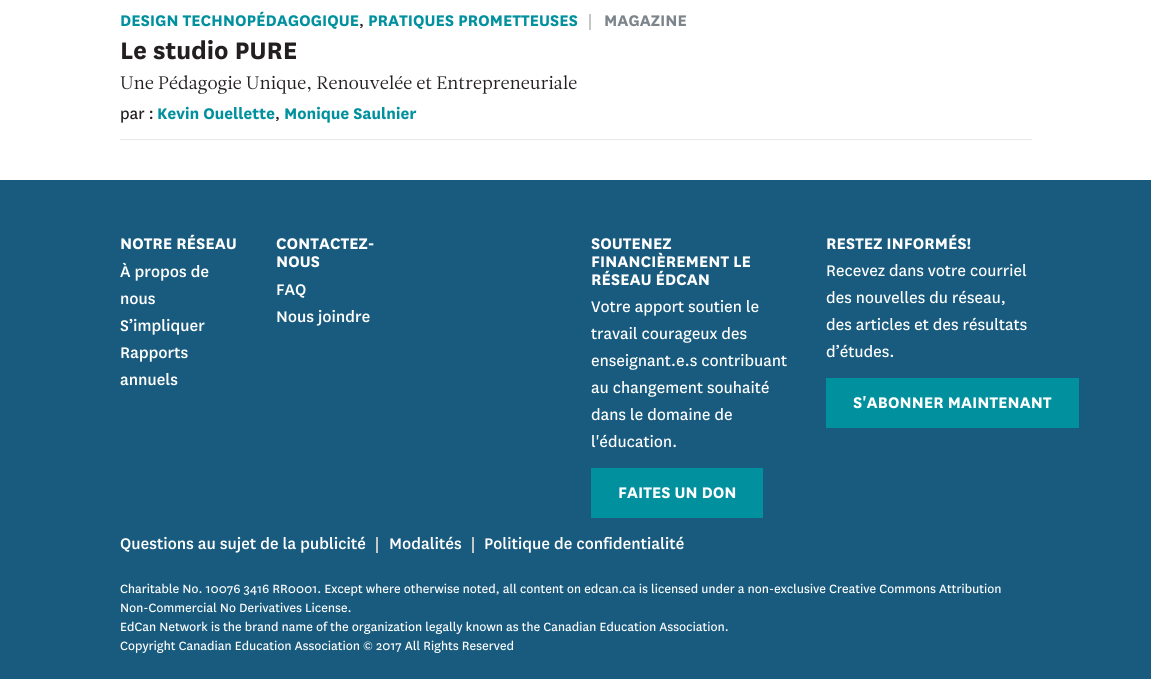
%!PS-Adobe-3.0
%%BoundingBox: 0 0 1151 679
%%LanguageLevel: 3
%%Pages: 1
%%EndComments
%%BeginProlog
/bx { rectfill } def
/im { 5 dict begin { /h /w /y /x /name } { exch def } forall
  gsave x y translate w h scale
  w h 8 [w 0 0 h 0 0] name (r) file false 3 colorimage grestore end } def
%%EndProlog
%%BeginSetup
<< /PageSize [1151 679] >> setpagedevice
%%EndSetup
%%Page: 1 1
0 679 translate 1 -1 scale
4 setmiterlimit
1 setgray
0 0 1151 679 bx
0.906 0.914 0.914 setrgbcolor
120 139 912 1 bx
(image0.raw) 121 11 238 18 im
(image1.raw) 360 23 3 5 im
(image2.raw) 369 15 209 14 im
0.776 setgray
589 14 2 16 bx
(image3.raw) 605 15 81 12 im
(image4.raw) 122 39 174 21 im
(image5.raw) 120 75 457 19 im
(image6.raw) 121 110 32 13 im
(image7.raw) 158 106 117 14 im
(image1.raw) 276 116 3 5 im
(image8.raw) 285 106 132 17 im
0.094 0.357 0.494 setrgbcolor
0 180 1151 499 bx
(image9.raw) 121 234 115 16 im
(image10.raw) 120 262 89 19 im
(image11.raw) 121 295 34 10 im
(image12.raw) 120 318 85 17 im
(image13.raw) 121 347 67 15 im
(image14.raw) 120 373 58 13 im
(image15.raw) 276 238 98 12 im
(image16.raw) 277 256 43 12 im
(image17.raw) 277 284 29 14 im
(image18.raw) 277 309 93 17 im
(image19.raw) 591 238 81 12 im
(image20.raw) 592 252 159 16 im
(image21.raw) 592 270 117 16 im
(image22.raw) 591 300 168 16 im
(image23.raw) 591 327 156 16 im
(image24.raw) 591 354 196 16 im
(image25.raw) 591 380 178 17 im
(image26.raw) 591 408 141 13 im
(image27.raw) 592 434 84 14 im
0 0.565 0.62 setrgbcolor
591 468 172 50 bx
(image28.raw) 619 487 117 12 im
(image29.raw) 827 234 144 16 im
(image30.raw) 827 264 200 13 im
(image31.raw) 826 290 179 15 im
(image32.raw) 826 317 201 14 im
(image33.raw) 826 344 68 14 im
826 378 253 50 bx
(image34.raw) 853 396 199 13 im
(image35.raw) 120 536 246 17 im
0.776 setgray
376 537 2 16 bx
(image36.raw) 390 536 72 14 im
472 537 2 16 bx
(image37.raw) 485 536 199 17 im
(image38.raw) 120 583 881 13 im
(image39.raw) 121 602 230 11 im
(image40.raw) 121 621 607 13 im
(image41.raw) 120 640 240 13 im
(image42.raw) 363 640 151 13 im
showpage
%%EOF
